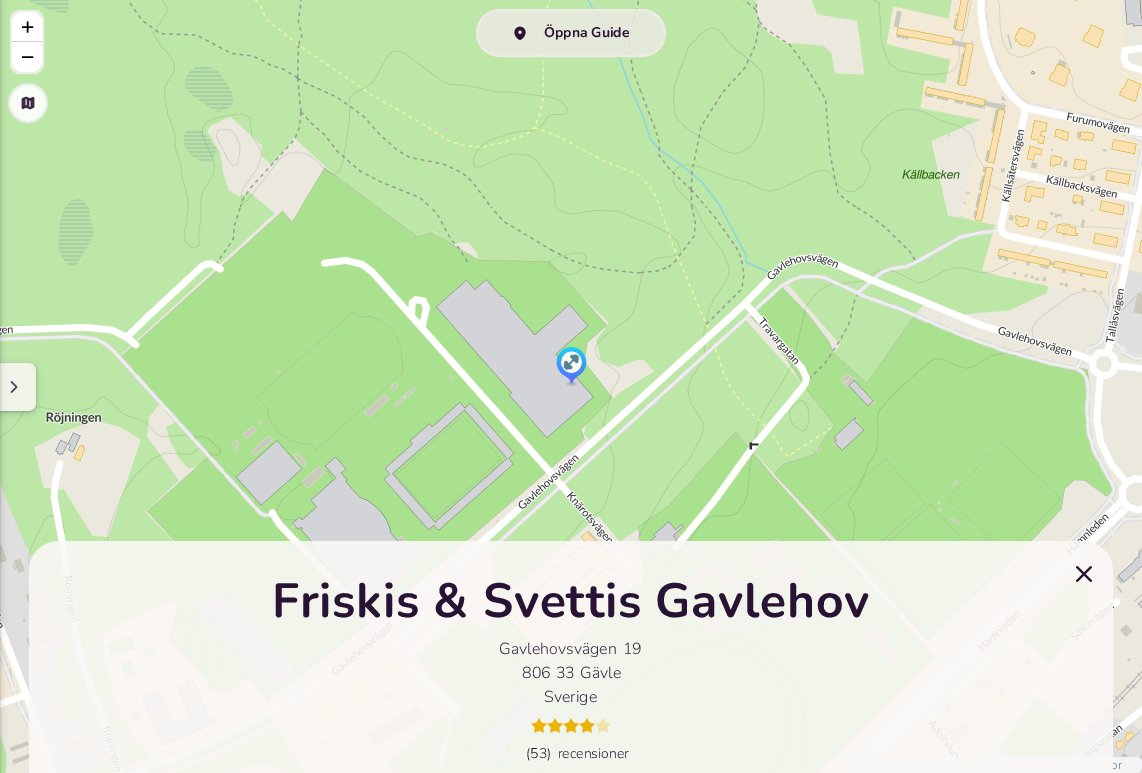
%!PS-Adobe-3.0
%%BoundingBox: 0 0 1142 773
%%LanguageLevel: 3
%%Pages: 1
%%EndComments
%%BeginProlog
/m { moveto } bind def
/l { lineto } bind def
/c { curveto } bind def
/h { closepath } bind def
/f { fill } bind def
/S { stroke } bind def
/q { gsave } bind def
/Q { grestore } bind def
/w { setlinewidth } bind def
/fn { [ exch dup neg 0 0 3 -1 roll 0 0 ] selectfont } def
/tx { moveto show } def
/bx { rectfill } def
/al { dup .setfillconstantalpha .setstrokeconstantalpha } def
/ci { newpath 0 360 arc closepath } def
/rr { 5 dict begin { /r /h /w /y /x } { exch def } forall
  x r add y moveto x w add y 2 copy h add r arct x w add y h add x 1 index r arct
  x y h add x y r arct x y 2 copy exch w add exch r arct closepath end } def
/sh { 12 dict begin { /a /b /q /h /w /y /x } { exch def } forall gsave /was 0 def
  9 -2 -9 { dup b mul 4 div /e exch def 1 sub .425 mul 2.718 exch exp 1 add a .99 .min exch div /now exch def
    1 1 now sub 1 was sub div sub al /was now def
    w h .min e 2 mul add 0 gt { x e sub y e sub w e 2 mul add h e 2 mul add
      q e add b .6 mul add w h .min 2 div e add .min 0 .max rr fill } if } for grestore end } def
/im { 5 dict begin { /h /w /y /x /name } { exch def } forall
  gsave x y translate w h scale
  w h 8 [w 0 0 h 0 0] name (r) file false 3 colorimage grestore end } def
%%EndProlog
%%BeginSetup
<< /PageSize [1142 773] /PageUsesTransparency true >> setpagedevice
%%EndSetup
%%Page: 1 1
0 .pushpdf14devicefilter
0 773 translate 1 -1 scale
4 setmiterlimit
1 setgray
0 0 1142 773 bx
(image6.raw) 0 207 129 256 im
q
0 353 m 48 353 l 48 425 l 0 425 l h -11 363 m 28 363 l 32.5 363 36 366.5 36 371 c 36 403 l 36 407.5 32.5 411 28 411 c -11 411 l h eoclip newpath
0.235 0.251 0.263 setrgbcolor
-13 363 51 52 10 3 0.15 sh
Q
q
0 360 m 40 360 l 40 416 l 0 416 l h -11 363 m 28 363 l 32.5 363 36 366.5 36 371 c 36 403 l 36 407.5 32.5 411 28 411 c -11 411 l h eoclip newpath
0.235 0.251 0.263 setrgbcolor
-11 364 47 48 8 1 0.3 sh
Q
0.85 al
0.98 0.969 0.961 setrgbcolor
-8 363 m 28 363 l 32.5 363 36 366.5 36 371 c 36 403 l 36 407.5 32.5 411 28 411 c -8 411 l h f
1 al
(image0.raw) 10 381 8 12 im
(image1.raw) 0 0 129 207 im
(image11.raw) 0 463 129 256 im
(image16.raw) 0 719 129 54 im
0.929 setgray
2 w
11 11 32 62 9 rr S
0.973 0.992 0.965 setrgbcolor
28 103 19 ci q f Q
0.91 0.925 0.902 setrgbcolor
S
0.235 0.251 0.263 setrgbcolor
-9 0 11 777 0 3 0.15 sh
-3 1 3 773 0 1 0.3 sh
(image2.raw) 129 0 256 207 im
(image3.raw) 385 0 256 207 im
(image4.raw) 641 0 256 207 im
(image5.raw) 897 0 245 207 im
(image7.raw) 129 207 256 256 im
(image8.raw) 385 207 256 256 im
(image9.raw) 641 207 256 256 im
(image10.raw) 897 207 245 256 im
(image12.raw) 129 463 256 256 im
(image13.raw) 385 463 256 256 im
(image14.raw) 641 463 256 256 im
(image15.raw) 897 463 245 256 im
(image17.raw) 129 719 256 54 im
(image18.raw) 385 719 256 54 im
(image19.raw) 641 719 256 54 im
(image20.raw) 897 719 245 54 im
(image21.raw) 556 347 31 40 im
1 setgray
22 12 m 32 12 l 37.5 12 42 16.5 42 22 c 42 41 l 12 41 l 12 22 l 12 16.5 16.5 12 22 12 c h f
0.8 setgray
12 41 30 1 bx
/DejaVuSansMono-Regular 22 fn
0 setgray
(+) 21 34 tx
1 setgray
12 42 m 42 42 l 42 62 l 42 67.5 37.5 72 32 72 c 22 72 l 16.5 72 12 67.5 12 62 c h f
0 setgray
(−) 21 64 tx
(image22.raw) 21 96 14 14 im
0.953 0.957 0.965 setrgbcolor
839 757 303 16 6 rr f
/Nunito-Light 12 fn
0.392 0.455 0.545 setrgbcolor
1111 769 m 2 0 32 (or) widthshow
0.9 al
0.98 0.969 0.961 setrgbcolor
59 541 m 1083 541 l 1099.5 541 1113 554.5 1113 571 c 1113 773 l 29 773 l 29 571 l 29 554.5 42.5 541 59 541 c h f
1 al
(image23.raw) 1076 566 16 16 im
/Nunito-Bold 48 fn
0.161 0.075 0.204 setrgbcolor
272 617 m 0.7 0 (Friskis & Svettis Gavlehov) ashow
/Nunito-Light 16 fn
0.239 0.165 0.275 setrgbcolor
499 654 m 2 0 32 (Gavlehovsvägen 19) widthshow
522 678 m 1 0 32 (806 33 Gävle) widthshow
(Sverige) 544 702 tx
(image24.raw) 531 718 16 15 im
(image25.raw) 547 718 16 15 im
(image26.raw) 563 718 16 15 im
(image27.raw) 579 718 16 15 im
(image28.raw) 595 718 16 15 im
/Nunito-Light 14 fn
0.161 0.075 0.204 setrgbcolor
526 758 m 3 0 32 (\(53\) recensioner) widthshow
0.8 al
0.937 0.918 0.902 setrgbcolor
477 10 188 46 23 rr f
1 al
477 10 188 46 23 rr S
(image29.raw) 514 26 12 15 im
/Nunito-Bold 14 fn
0.161 0.075 0.204 setrgbcolor
(Öppna Guide) 544 37 tx
.poppdf14devicefilter showpage
%%EOF
